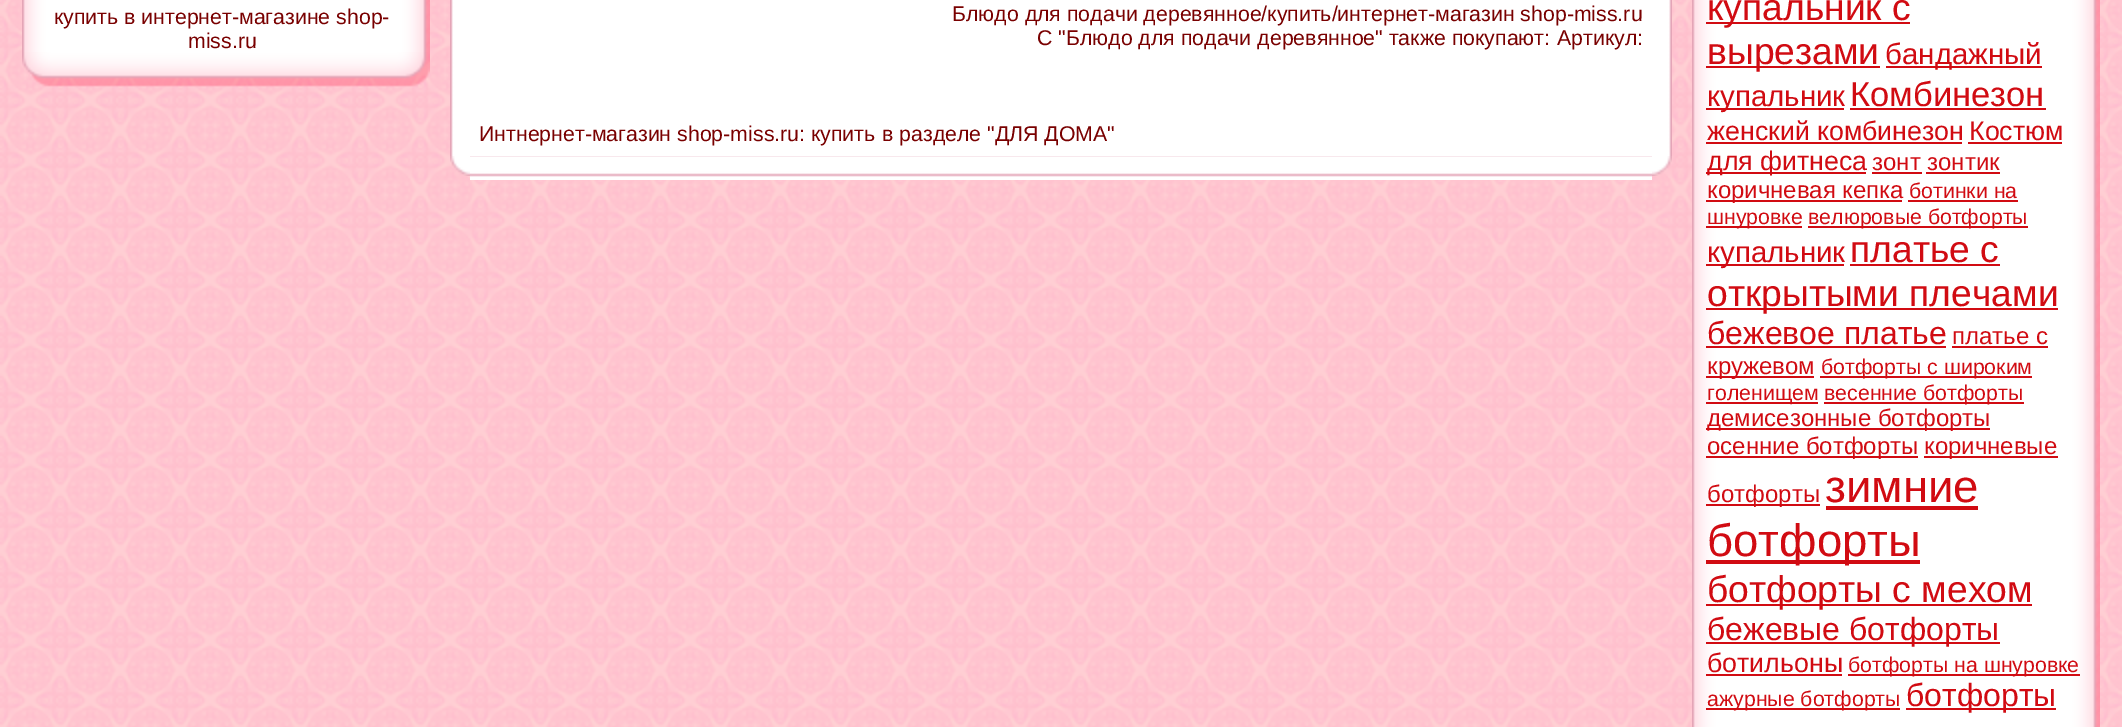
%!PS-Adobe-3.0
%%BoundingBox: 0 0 2122 727
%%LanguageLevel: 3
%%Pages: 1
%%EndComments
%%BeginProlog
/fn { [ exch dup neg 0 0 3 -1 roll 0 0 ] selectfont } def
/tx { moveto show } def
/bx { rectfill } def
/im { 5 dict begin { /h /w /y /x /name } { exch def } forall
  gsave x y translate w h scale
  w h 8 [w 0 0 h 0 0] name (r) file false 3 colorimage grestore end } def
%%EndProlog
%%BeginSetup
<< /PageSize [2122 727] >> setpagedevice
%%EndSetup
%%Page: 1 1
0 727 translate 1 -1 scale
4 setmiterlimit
1 setgray
0 0 2122 727 bx
(image0.raw) 0 0 2122 727 im
(image1.raw) 22 0 408 52 im
/LiberationSans-Regular 21.3 fn
0.475 0 0 setrgbcolor
(купить в интернет-магазине shop-) 54 24 tx
(miss.ru) 188 48 tx
(image2.raw) 22 52 408 35 im
(image3.raw) 450 0 20 156 im
1 setgray
470 0 1182 156 bx
0.475 0 0 setrgbcolor
(Блюдо для подачи деревянное/купить/интернет-магазин shop-miss.ru) 952 21 tx
(С "Блюдо для подачи деревянное" также покупают:) 1037 45 tx
(Артикул:) 1557 45 tx
(Интнернет-магазин shop-miss.ru: купить) 479 141 tx
(в разделе "ДЛЯ ДОМА") 882 141 tx
(image4.raw) 1652 0 20 156 im
(image5.raw) 450 156 20 20 im
(image6.raw) 470 156 1182 24 im
(image7.raw) 1652 156 20 20 im
(image8.raw) 1692 0 408 727 im
0.82 0.043 0.071 setrgbcolor
1706 22 204 2 bx
/LiberationSans-Regular 37.25 fn
(купальник с) 1707 20 tx
1706 66 174 2 bx
(вырезами) 1707 64 tx
1886 66 156 2 bx
/LiberationSans-Regular 29.5 fn
(бандажный) 1885 64 tx
1706 108 138 2 bx
(купальник) 1707 106 tx
1850 108 196 2 bx
/LiberationSans-Regular 34.5 fn
(Комбинезон) 1850 106 tx
/LiberationSans-Regular 26.75 fn
(женский комбинезон) 1707 140 tx
1706 142 256 2 bx
(Костюм) 1969 140 tx
1968 142 94 2 bx
1706 172 160 2 bx
(для фитнеса) 1707 170 tx
/LiberationSans-Regular 24 fn
(зонт) 1872 170 tx
1872 172 50 2 bx
(зонтик) 1927 170 tx
1926 172 74 2 bx
1706 200 196 2 bx
(коричневая кепка) 1707 198 tx
1908 200 110 2 bx
/LiberationSans-Regular 21.3 fn
(ботинки на) 1909 198 tx
1706 226 96 2 bx
(шнуровке) 1707 224 tx
1808 226 220 2 bx
(велюровые ботфорты) 1808 224 tx
1706 264 138 2 bx
/LiberationSans-Regular 29.5 fn
(купальник) 1707 262 tx
1850 264 150 2 bx
/LiberationSans-Regular 37.25 fn
(платье с) 1850 262 tx
1706 308 352 2 bx
(открытыми плечами) 1707 306 tx
/LiberationSans-Regular 32 fn
(бежевое платье) 1707 344 tx
/LiberationSans-Regular 24 fn
(платье с) 1952 344 tx
1706 346 240 2 bx
1952 346 96 2 bx
1706 376 108 2 bx
(кружевом) 1707 374 tx
1820 376 212 2 bx
/LiberationSans-Regular 21.3 fn
(ботфорты с широким) 1821 374 tx
1706 402 112 2 bx
(голенищем) 1707 400 tx
1824 402 200 2 bx
(весенние ботфорты) 1824 400 tx
1706 428 284 2 bx
/LiberationSans-Regular 24 fn
(демисезонные ботфорты) 1707 426 tx
1706 456 212 2 bx
(осенние ботфорты) 1707 454 tx
1924 456 134 2 bx
(коричневые) 1924 454 tx
1706 504 114 2 bx
(ботфорты) 1707 502 tx
1826 506 152 4 bx
/LiberationSans-Regular 45.5 fn
(зимние) 1825 502 tx
1706 560 214 4 bx
(ботфорты) 1707 556 tx
1706 604 326 2 bx
/LiberationSans-Regular 37.25 fn
(ботфорты с мехом) 1707 602 tx
1706 642 294 2 bx
/LiberationSans-Regular 32 fn
(бежевые ботфорты) 1707 640 tx
/LiberationSans-Regular 26.75 fn
(ботильоны) 1707 672 tx
1848 674 232 2 bx
/LiberationSans-Regular 21.3 fn
(ботфорты на шнуровке) 1848 672 tx
1706 674 136 2 bx
1706 708 194 2 bx
(ажурные ботфорты) 1707 706 tx
1906 708 150 2 bx
/LiberationSans-Regular 32 fn
(ботфорты) 1906 706 tx
showpage
%%EOF
